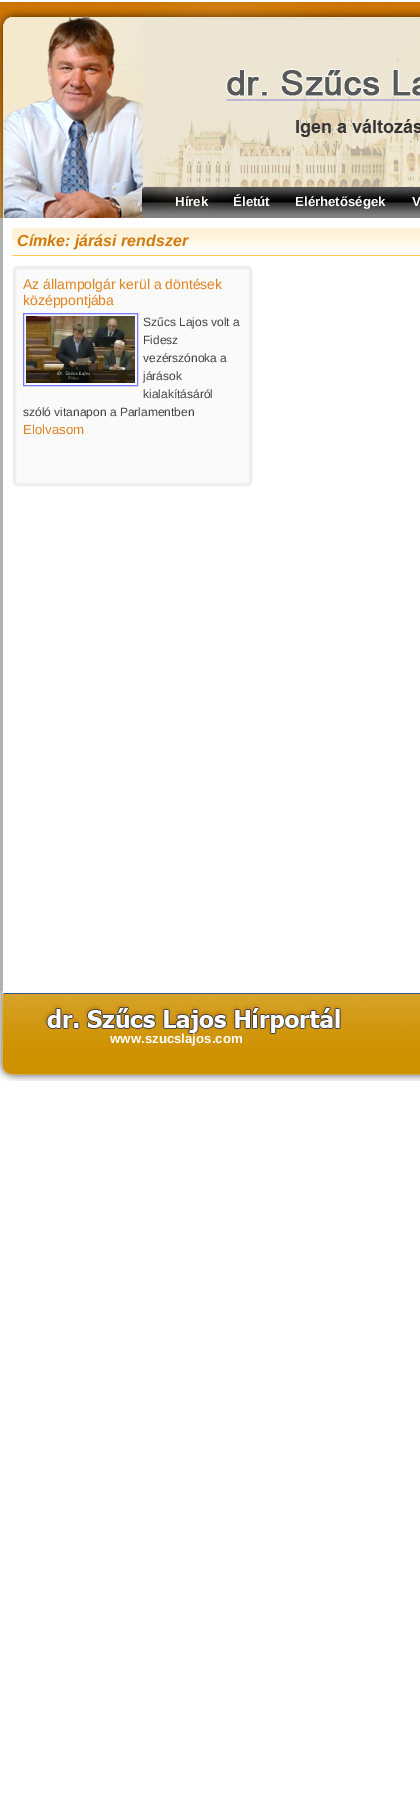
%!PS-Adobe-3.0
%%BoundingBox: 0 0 420 1820
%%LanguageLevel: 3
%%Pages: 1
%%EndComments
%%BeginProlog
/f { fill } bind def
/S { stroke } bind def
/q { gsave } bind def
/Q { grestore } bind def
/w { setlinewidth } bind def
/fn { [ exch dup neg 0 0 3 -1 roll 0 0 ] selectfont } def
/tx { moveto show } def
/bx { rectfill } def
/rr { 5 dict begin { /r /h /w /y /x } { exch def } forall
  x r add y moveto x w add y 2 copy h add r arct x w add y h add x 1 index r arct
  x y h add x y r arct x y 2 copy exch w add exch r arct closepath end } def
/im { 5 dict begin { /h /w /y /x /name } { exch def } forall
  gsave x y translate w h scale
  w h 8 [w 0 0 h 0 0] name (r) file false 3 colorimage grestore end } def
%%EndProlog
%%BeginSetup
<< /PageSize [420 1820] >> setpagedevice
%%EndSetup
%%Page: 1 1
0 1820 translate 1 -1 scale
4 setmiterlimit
1 setgray
0 0 420 1820 bx
0.69 setgray
0 218 3 773 bx
(image0.raw) 0 2 420 216 im
/LiberationSans-Bold 13.25 fn
1 setgray
(Hírek) 175 206 tx
(Életút) 233 206 tx
(Elérhetőségek) 295 206 tx
(V) 412 206 tx
(image1.raw) 12 228 408 26 im
1 0.8 0.333 setrgbcolor
12 255 408 1 bx
/LiberationSans-BoldItalic 16 fn
0.816 0.482 0.051 setrgbcolor
(Címke: járási rendszer) 17 246 tx
0.98 setgray
14.5 267.5 236 217 3.5 rr q f Q
0.933 setgray
3 w
S
/LiberationSans-Regular 14 fn
0.875 0.514 0.125 setrgbcolor
(Az állampolgár kerül a döntések) 23 289 tx
(középpontjába) 23 305 tx
0.467 0.467 1 setrgbcolor
1 w
23.5 313.5 114 72 rectstroke
(image2.raw) 26 316 109 67 im
/LiberationSans-Regular 12 fn
0.259 setgray
(Szűcs Lajos volt a) 143 326 tx
(Fidesz) 143 344 tx
(vezérszónoka a) 143 362 tx
(járások) 143 380 tx
(kialakításáról) 143 398 tx
(szóló vitanapon a Parlamentben) 23 416 tx
/LiberationSans-Regular 13.25 fn
0.875 0.514 0.125 setrgbcolor
(Elolvasom) 23 434 tx
(image3.raw) 0 991 420 90 im
/LiberationSans-Bold 13.25 fn
1 setgray
(www.szucslajos.com) 110 1043 tx
showpage
%%EOF
